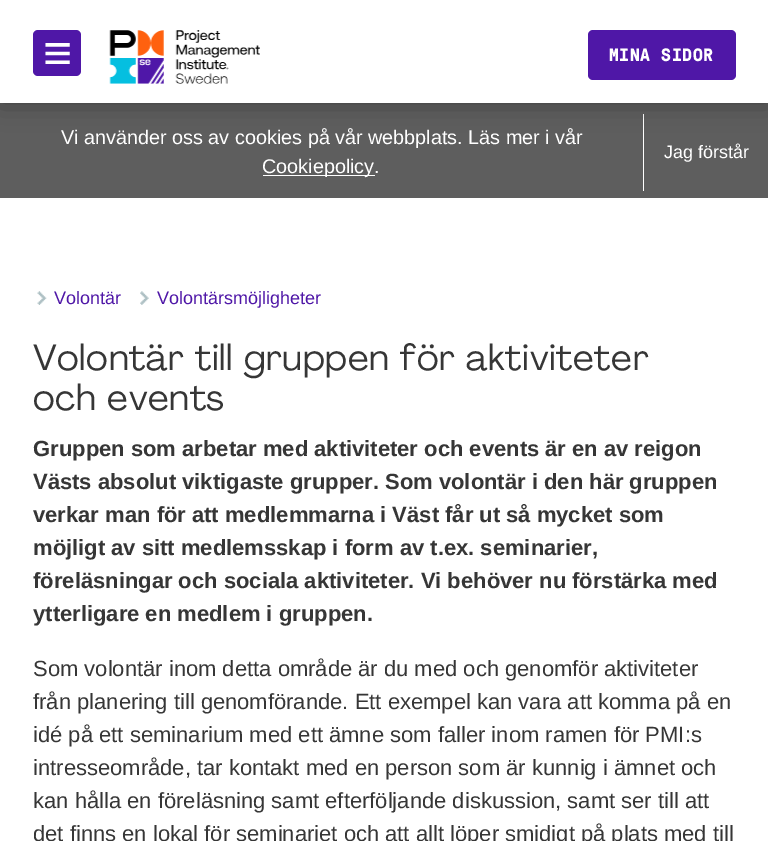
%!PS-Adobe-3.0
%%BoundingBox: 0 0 768 841
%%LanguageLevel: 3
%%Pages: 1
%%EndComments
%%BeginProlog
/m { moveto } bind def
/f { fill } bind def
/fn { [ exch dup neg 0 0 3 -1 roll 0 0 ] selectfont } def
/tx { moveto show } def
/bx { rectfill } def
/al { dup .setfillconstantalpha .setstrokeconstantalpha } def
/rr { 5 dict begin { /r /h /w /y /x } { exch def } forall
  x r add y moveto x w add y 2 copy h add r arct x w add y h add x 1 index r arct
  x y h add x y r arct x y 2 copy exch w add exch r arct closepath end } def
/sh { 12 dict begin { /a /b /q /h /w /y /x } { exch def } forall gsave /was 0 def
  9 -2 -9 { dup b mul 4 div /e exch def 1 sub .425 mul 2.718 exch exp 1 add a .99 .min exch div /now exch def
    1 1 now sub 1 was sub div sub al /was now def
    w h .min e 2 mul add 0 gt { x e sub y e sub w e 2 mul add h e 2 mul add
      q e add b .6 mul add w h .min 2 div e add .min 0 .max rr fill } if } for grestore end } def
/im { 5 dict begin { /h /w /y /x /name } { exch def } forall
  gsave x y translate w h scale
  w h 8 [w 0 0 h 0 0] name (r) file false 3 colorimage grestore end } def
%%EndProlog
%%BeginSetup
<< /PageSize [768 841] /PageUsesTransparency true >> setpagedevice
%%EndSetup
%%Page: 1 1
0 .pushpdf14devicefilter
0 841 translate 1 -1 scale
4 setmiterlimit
1 setgray
0 0 768 841 bx
0.369 setgray
0 103 768 95 bx
1 setgray
643 114 1 77 bx
0 setgray
0 -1 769 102 0 14 0.4 sh
1 setgray
0 0 768 103 bx
0.31 0.09 0.655 setrgbcolor
33 30 48 46 5 rr f
/LiberationSans-Regular 50 fn
1 setgray
(≡) 43 70 tx
(image0.raw) 109 30 151 54 im
0.31 0.09 0.655 setrgbcolor
588 30 148 50 5 rr f
/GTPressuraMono-Bold 18 fn
1 setgray
609 61 m 0.6 0 (MINA SIDOR) ashow
/LiberationSans-Regular 19.8 fn
(Vi använder oss av cookies på vår webbplats. Läs mer i vår) 61 144 tx
263 175 112 1 bx
(Cookiepolicy.) 262 173 tx
/LiberationSans-Regular 18 fn
(Jag förstår) 664 158 tx
(image1.raw) 37 291 10 14 im
0.31 0.09 0.655 setrgbcolor
(Volontär) 54 304 tx
(image2.raw) 140 291 9 14 im
(Volontärsmöjligheter) 157 304 tx
/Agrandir-Regular 36 fn
0.212 setgray
33 370 m 0.6 0 (Volontär till gruppen för aktiviteter) ashow
33 410 m 0.6 0 (och events) ashow
/LiberationSans-Bold 22 fn
(Gruppen som arbetar med aktiviteter och events är en av reigon) 33 456 tx
(Västs absolut viktigaste grupper. Som volontär i den här gruppen) 33 489 tx
(verkar man för att medlemmarna i Väst får ut så mycket som) 33 522 tx
(möjligt av sitt medlemsskap i form av t.ex. seminarier,) 33 555 tx
(föreläsningar och sociala aktiviteter. Vi behöver nu förstärka med) 33 588 tx
(ytterligare en medlem i gruppen.) 33 621 tx
/LiberationSans-Regular 22 fn
(Som volontär inom detta område är du med och genomför aktiviteter) 33 676 tx
(från planering till genomförande. Ett exempel kan vara att komma på en) 33 709 tx
(idé på ett seminarium med ett ämne som faller inom ramen för PMI:s) 33 742 tx
(intresseområde, tar kontakt med en person som är kunnig i ämnet och) 33 775 tx
(kan hålla en föreläsning samt efterföljande diskussion, samt ser till att) 33 808 tx
(det finns en lokal för seminariet och att allt löper smidigt på plats med till) 33 841 tx
.poppdf14devicefilter showpage
%%EOF
